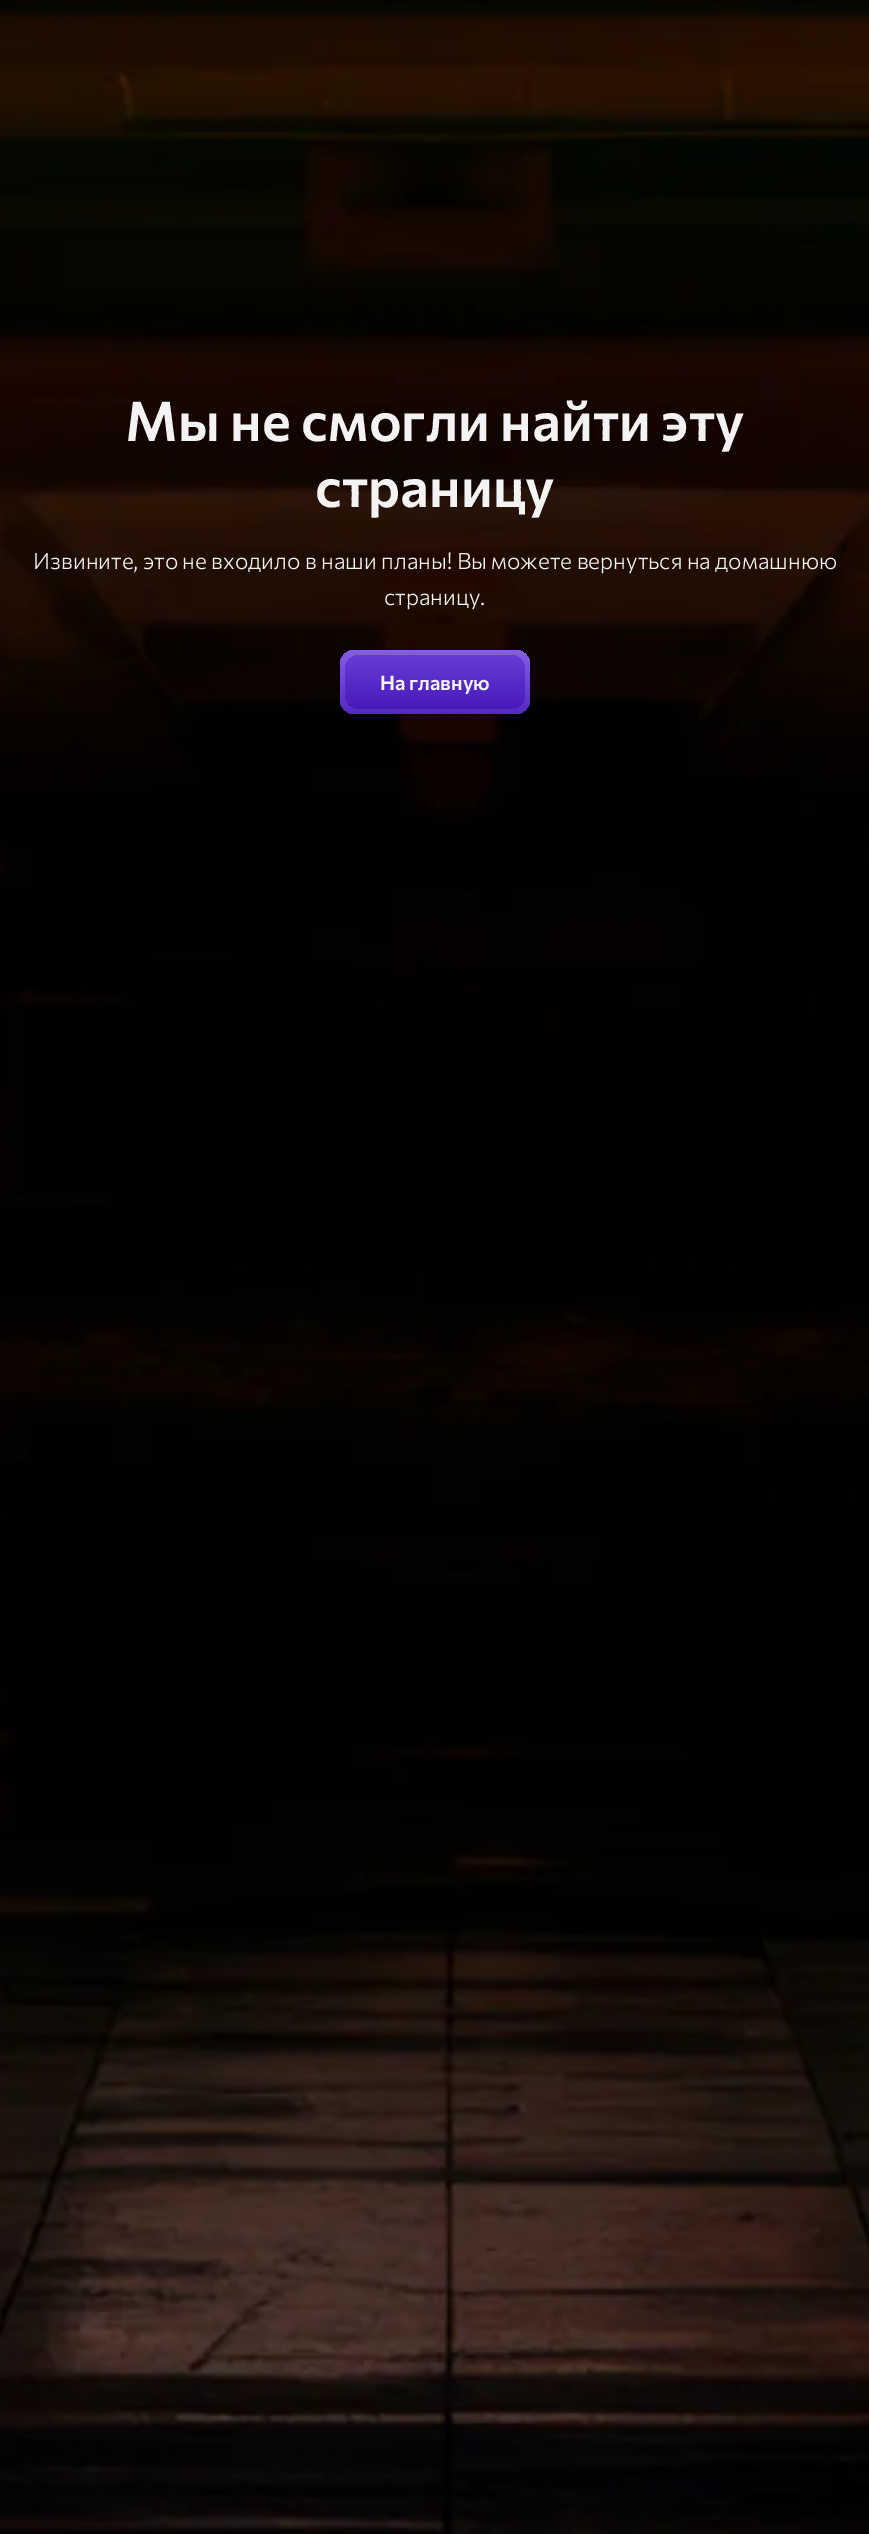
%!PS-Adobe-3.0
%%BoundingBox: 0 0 869 2534
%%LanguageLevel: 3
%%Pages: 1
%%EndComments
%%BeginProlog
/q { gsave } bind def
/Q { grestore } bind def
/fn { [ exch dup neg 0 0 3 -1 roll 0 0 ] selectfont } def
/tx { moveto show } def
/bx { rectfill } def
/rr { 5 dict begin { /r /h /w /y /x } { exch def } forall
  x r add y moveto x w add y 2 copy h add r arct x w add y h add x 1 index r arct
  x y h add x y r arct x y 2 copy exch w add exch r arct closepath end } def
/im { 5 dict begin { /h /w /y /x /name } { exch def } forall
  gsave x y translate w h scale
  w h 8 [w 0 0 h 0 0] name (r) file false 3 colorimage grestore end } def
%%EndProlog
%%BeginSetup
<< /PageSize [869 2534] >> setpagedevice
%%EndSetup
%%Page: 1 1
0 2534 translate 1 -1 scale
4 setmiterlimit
1 setgray
0 0 869 2534 bx
(image0.raw) 0 0 869 2534 im
/Commissioner-Thin 55 fn
0.953 setgray
(Мы не смогли найти эту) 125 441 tx
(страницу) 315 507 tx
/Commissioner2-Thin 22.5 fn
(Извините, это не входило в наши планы! Вы можете вернуться на домашнюю) 33 569 tx
(страницу.) 384 605 tx
q 340 650 190 64 15 rr clip newpath
<< /ShadingType 2 /ColorSpace /DeviceRGB /Coords [435 650 435 714] /Extend [true true] /Function << /FunctionType 2 /Domain [0 1] /C0 [0.522 0.369 0.914] /C1 [0.329 0.161 0.749] /N 1 >> >> shfill Q
q 345 655 180 54 15 rr clip newpath
<< /ShadingType 2 /ColorSpace /DeviceRGB /Coords [435 655 435 709] /Extend [true true] /Function << /FunctionType 2 /Domain [0 1] /C0 [0.404 0.235 0.839] /C1 [0.278 0.102 0.729] /N 1 >> >> shfill Q
/Commissioner-Thin 20 fn
(На главную) 380 690 tx
showpage
%%EOF
